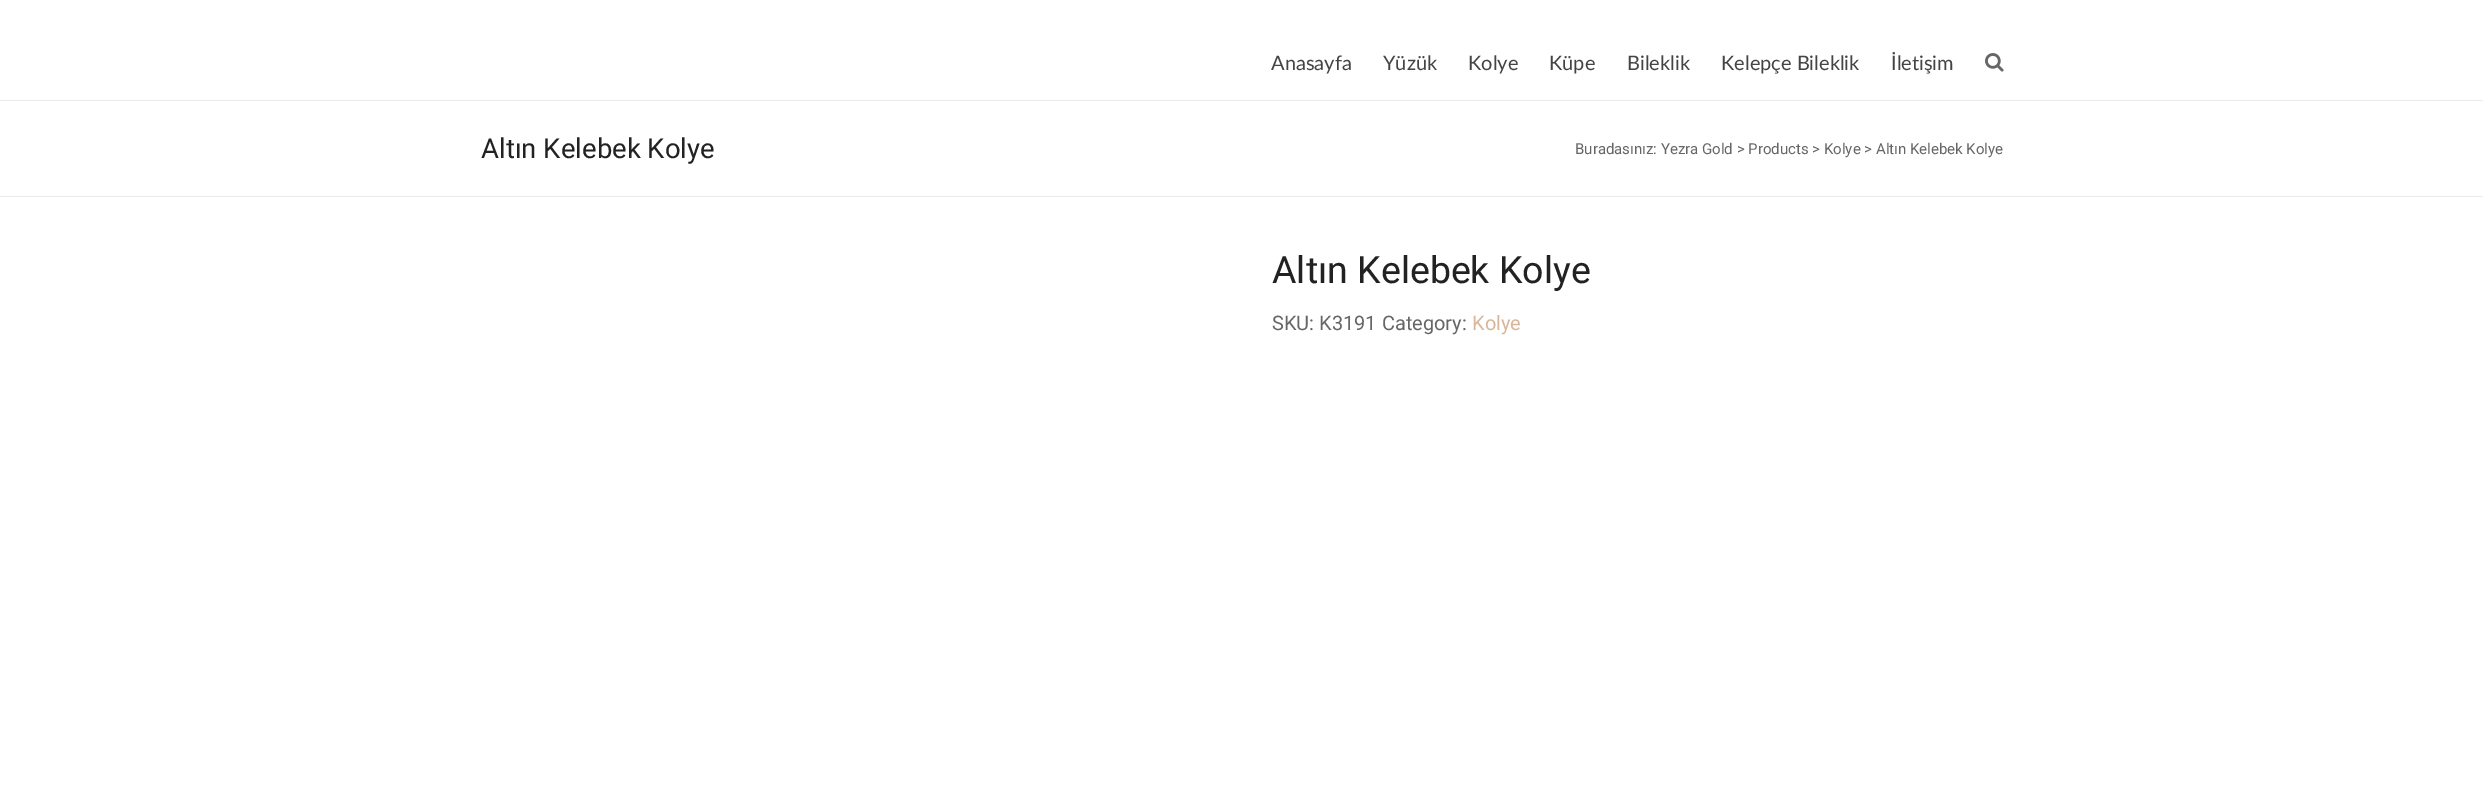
%!PS-Adobe-3.0
%%BoundingBox: 0 0 2483 811
%%LanguageLevel: 3
%%Pages: 1
%%EndComments
%%BeginProlog
/fn { [ exch dup neg 0 0 3 -1 roll 0 0 ] selectfont } def
/tx { moveto show } def
/bx { rectfill } def
/im { 5 dict begin { /h /w /y /x /name } { exch def } forall
  gsave x y translate w h scale
  w h 8 [w 0 0 h 0 0] name (r) file false 3 colorimage grestore end } def
%%EndProlog
%%BeginSetup
<< /PageSize [2483 811] >> setpagedevice
%%EndSetup
%%Page: 1 1
0 811 translate 1 -1 scale
4 setmiterlimit
1 setgray
0 0 2483 811 bx
0.918 setgray
0 100 2483 1 bx
/Lato-Regular 20 fn
0.267 setgray
(Anasayfa) 1271 70 tx
(Yüzük) 1383 70 tx
(Kolye) 1468 70 tx
(Küpe) 1549 70 tx
(Bileklik) 1627 70 tx
(Kelepçe Bileklik) 1721 70 tx
(İletişim) 1891 70 tx
(image0.raw) 1985 53 19 19 im
0.918 setgray
0 196 2483 1 bx
/Roboto-Regular 27.5 fn
0.133 setgray
(Altın Kelebek Kolye) 481 158 tx
/Roboto-Regular 15 fn
0.4 setgray
(Buradasınız: Yezra Gold > Products > Kolye > Altın Kelebek Kolye) 1575 154 tx
/Roboto-Regular 37.5 fn
0.133 setgray
(Altın Kelebek Kolye) 1272 283 tx
/Roboto-Regular 20 fn
0.4 setgray
(SKU: K3191 Category:) 1272 330 tx
0.843 0.714 0.6 setrgbcolor
(Kolye) 1472 330 tx
showpage
%%EOF
